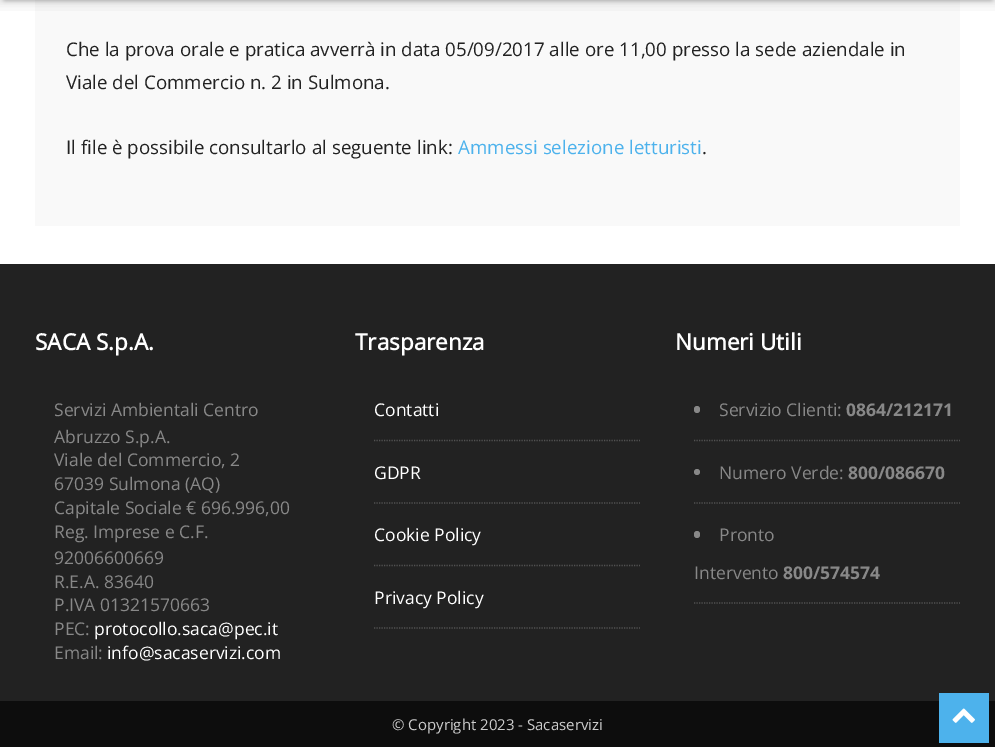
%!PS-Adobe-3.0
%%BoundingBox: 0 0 995 747
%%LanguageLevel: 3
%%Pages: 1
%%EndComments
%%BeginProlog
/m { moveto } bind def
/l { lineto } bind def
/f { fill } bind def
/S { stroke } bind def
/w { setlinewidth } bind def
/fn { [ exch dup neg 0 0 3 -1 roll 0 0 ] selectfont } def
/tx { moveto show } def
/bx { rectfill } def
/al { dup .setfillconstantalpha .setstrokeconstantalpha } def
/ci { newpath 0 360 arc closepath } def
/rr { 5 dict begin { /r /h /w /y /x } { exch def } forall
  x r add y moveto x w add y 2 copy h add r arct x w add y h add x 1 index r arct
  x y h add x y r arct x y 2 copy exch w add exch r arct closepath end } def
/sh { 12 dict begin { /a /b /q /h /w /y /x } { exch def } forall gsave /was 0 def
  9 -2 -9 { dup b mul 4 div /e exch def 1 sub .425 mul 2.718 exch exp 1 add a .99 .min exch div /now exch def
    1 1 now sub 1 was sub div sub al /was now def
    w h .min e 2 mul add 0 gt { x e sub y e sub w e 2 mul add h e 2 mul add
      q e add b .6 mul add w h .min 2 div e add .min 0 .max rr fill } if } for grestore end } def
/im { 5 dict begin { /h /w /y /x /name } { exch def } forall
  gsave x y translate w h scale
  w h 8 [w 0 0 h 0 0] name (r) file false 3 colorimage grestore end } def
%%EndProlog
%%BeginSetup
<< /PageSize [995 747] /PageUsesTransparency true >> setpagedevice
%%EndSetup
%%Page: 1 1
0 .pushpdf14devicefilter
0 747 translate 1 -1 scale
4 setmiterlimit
1 setgray
0 0 995 747 bx
0.976 setgray
35 0 925 226 bx
0 setgray
3 -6 990 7 0 2 0.25 sh
(image0.raw) 0 0 995 11 im
/OpenSans-Regular 18.75 fn
0.133 setgray
(Che la prova orale e pratica avverrà in data 05/09/2017 alle ore 11,00 presso la sede aziendale in) 66 56 tx
(Viale del Commercio n. 2 in Sulmona.) 66 89 tx
(Il file è possibile consultarlo al seguente link:) 66 154 tx
0.302 0.698 0.925 setrgbcolor
(Ammessi selezione letturisti) 458 154 tx
0.133 setgray
(.) 702 154 tx
0 264 995 437 bx
/OpenSans-Bold 22.5 fn
1 setgray
(SACA S.p.A.) 35 350 tx
/OpenSans-Regular 17.5 fn
0.533 setgray
(Servizi Ambientali Centro) 54 416 tx
(Abruzzo S.p.A.) 54 443 tx
(Viale del Commercio, 2) 54 466 tx
(67039 Sulmona \(AQ\)) 54 490 tx
(Capitale Sociale € 696.996,00) 54 514 tx
(Reg. Imprese e C.F.) 54 538 tx
(92006600669) 54 564 tx
(R.E.A. 83640) 54 588 tx
(P.IVA 01321570663) 54 611 tx
(PEC:) 54 635 tx
1 setgray
(protocollo.saca@pec.it) 94 635 tx
0.533 setgray
(Email:) 54 659 tx
1 setgray
(info@sacaservizi.com) 107 659 tx
/OpenSans-Bold 22.5 fn
(Trasparenza) 355 350 tx
0.322 setgray
1.2 w
[1.25 1.25] 0 setdash
374 440.5 m 640 440.5 l S
/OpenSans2-Regular 17.5 fn
1 setgray
(Contatti) 374 416 tx
0.322 setgray
374 503 m 640 503 l S
1 setgray
(GDPR) 374 479 tx
0.322 setgray
374 565.5 m 640 565.5 l S
1 setgray
(Cookie Policy) 374 541 tx
0.322 setgray
374 628 m 640 628 l S
1 setgray
(Privacy Policy) 374 604 tx
/OpenSans-Bold 22.5 fn
(Numeri Utili) 675 350 tx
0.322 setgray
694 440.5 m 960 440.5 l S
0.533 setgray
694 406 6 7 3 rr f
/OpenSans2-Regular 17.5 fn
(Servizio Clienti:) 719 416 tx
/OpenSans2-Bold 17.5 fn
(0864/212171) 846 416 tx
0.322 setgray
694 503 m 960 503 l S
0.533 setgray
697 472 3 ci f
/OpenSans2-Regular 17.5 fn
(Numero Verde:) 719 479 tx
/OpenSans2-Bold 17.5 fn
(800/086670) 848 479 tx
0.322 setgray
694 603 m 960 603 l S
0.533 setgray
694 531 6 7 3 rr f
/OpenSans2-Regular 17.5 fn
(Pronto) 719 541 tx
(Intervento) 694 579 tx
/OpenSans2-Bold 17.5 fn
(800/574574) 783 579 tx
0.051 setgray
0 701 995 46 bx
/OpenSans2-Regular 15 fn
0.8 setgray
(© Copyright 2023 - Sacaservizi) 392 730 tx
0.302 0.698 0.925 setrgbcolor
939 693 50 50 bx
(image1.raw) 952 708 23 15 im
.poppdf14devicefilter showpage
%%EOF
